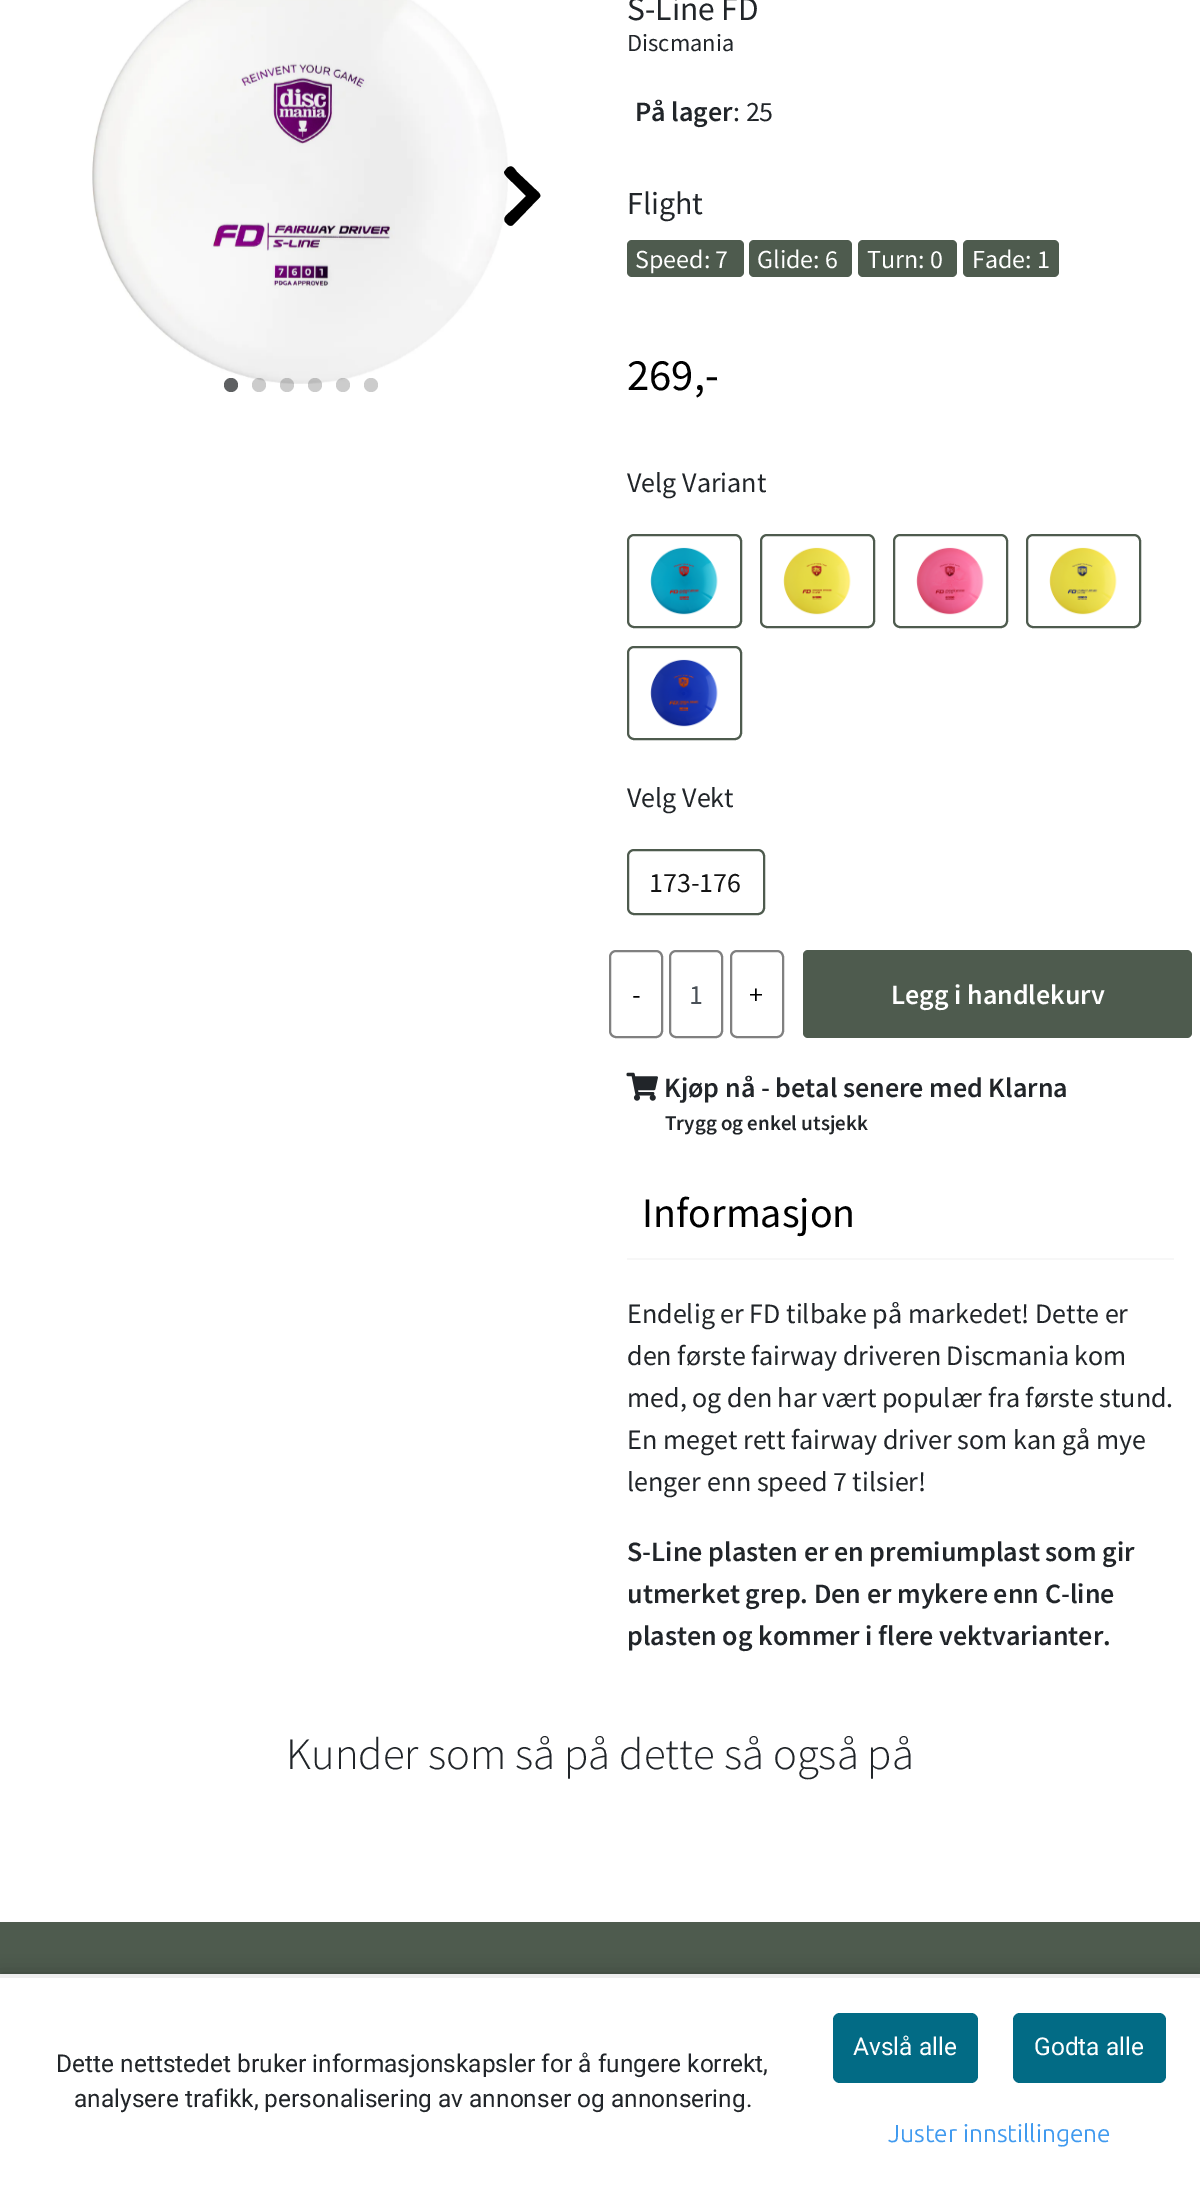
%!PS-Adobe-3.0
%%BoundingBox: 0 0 1200 2186
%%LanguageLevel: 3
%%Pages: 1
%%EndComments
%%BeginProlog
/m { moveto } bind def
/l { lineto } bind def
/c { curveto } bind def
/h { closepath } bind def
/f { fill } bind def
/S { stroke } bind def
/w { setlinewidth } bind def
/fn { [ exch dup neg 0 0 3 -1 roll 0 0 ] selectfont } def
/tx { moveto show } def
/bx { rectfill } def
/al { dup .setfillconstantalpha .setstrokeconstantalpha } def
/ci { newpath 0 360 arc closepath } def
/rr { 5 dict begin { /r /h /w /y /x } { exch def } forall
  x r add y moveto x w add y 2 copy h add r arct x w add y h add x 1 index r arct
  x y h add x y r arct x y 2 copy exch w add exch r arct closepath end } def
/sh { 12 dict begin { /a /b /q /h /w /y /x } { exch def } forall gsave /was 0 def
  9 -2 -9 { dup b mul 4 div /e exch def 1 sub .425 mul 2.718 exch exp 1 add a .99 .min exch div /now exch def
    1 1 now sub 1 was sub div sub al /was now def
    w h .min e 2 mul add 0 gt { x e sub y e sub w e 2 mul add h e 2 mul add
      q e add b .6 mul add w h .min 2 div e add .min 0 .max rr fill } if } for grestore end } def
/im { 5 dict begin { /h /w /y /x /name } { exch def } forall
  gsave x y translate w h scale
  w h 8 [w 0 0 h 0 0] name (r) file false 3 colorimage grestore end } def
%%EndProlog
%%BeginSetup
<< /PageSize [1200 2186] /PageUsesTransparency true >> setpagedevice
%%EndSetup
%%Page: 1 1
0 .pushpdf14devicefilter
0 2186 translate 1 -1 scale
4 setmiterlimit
1 setgray
0 0 1200 2186 bx
(image0.raw) 92 0 416 384 im
0 setgray
539 198 m 513 225 l 510 227 508 225 506 223 c 501 218 508 214 512 210 c 526 196 l 512 182 l 510 180 504 175 504 172 c 507 168 l 512 164 514 168 517 172 c 535 189 l 537 191 543 195 539 198 c h f
0.369 0.376 0.384 setrgbcolor
231 385 7 ci f
0.2 al
0 setgray
259 385 7 ci f
287 385 7 ci f
315 385 7 ci f
343 385 7 ci f
1 al
0.8 setgray
371 385 7 ci f
/SourceSansPro-Regular 33.5 fn
0.129 0.145 0.161 setrgbcolor
(S-Line FD) 627 20 tx
/SourceSansPro-Regular 24.5 fn
(Discmania) 627 51 tx
/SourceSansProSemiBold-SemiBold 28 fn
(På lager) 635 121 tx
/SourceSansPro-Regular 28 fn
(: 25) 733 121 tx
/SourceSansPro-Regular 32 fn
(Flight) 627 214 tx
0.306 0.357 0.306 setrgbcolor
627 240 117 37 5 rr f
/SourceSansPro-Regular 26 fn
1 setgray
(Speed: 7) 635 268 tx
0.306 0.357 0.306 setrgbcolor
749 240 103 37 5 rr f
1 setgray
(Glide: 6) 757 268 tx
0.306 0.357 0.306 setrgbcolor
858 240 99 37 5 rr f
1 setgray
(Turn: 0) 867 268 tx
0.306 0.357 0.306 setrgbcolor
963 240 96 37 5 rr f
1 setgray
(Fade: 1) 972 268 tx
/SourceSansPro-Regular 44.75 fn
0 setgray
(269,-) 627 390 tx
/SourceSansPro-Regular 28 fn
0.129 0.145 0.161 setrgbcolor
(Velg Variant) 627 492 tx
0.306 0.357 0.306 setrgbcolor
2 w
628 535 113 92 6 rr S
(image1.raw) 650 547 68 68 im
761 535 113 92 6 rr S
(image2.raw) 783 547 68 68 im
894 535 113 92 6 rr S
(image3.raw) 916 547 68 68 im
1027 535 113 92 6 rr S
(image4.raw) 1049 547 68 68 im
628 647 113 92 6 rr S
(image5.raw) 650 659 68 68 im
0.129 0.145 0.161 setrgbcolor
(Velg Vekt) 627 807 tx
0.306 0.357 0.306 setrgbcolor
628 850 136 64 6 rr S
0.075 setgray
(173-176) 649 892 tx
0.502 setgray
610 951 52 86 6 rr S
0 setgray
(-) 632 1004 tx
0.502 setgray
670 951 52 86 6 rr S
0.286 0.314 0.341 setrgbcolor
(1) 689 1004 tx
0.502 setgray
731 951 52 86 6 rr S
0 setgray
(+) 749 1004 tx
0.306 0.357 0.306 setrgbcolor
803 950 389 88 5 rr f
/SourceSansProSemiBold-SemiBold 28 fn
1 setgray
(Legg i handlekurv) 891 1004 tx
(image6.raw) 626 1072 32 29 im
0.129 0.145 0.161 setrgbcolor
(Kjøp nå - betal senere med Klarna) 664 1097 tx
/SourceSansProSemiBold-SemiBold 21 fn
(Trygg og enkel utsjekk) 665 1130 tx
0.969 setgray
627 1258 547 2 bx
/SourceSansPro-Regular 42 fn
0 setgray
(Informasjon) 642 1227 tx
/SourceSansPro-Regular 28 fn
0.129 0.145 0.161 setrgbcolor
(Endelig er FD tilbake på markedet! Dette er) 627 1323 tx
(den første fairway driveren Discmania kom) 627 1365 tx
(med, og den har vært populær fra første stund.) 627 1407 tx
(En meget rett fairway driver som kan gå mye) 627 1449 tx
(lenger enn speed 7 tilsier!) 627 1491 tx
/SourceSansProSemiBold-SemiBold 28 fn
(S-Line plasten er en premiumplast som gir) 627 1561 tx
(utmerket grep. Den er mykere enn C-line) 627 1603 tx
(plasten og kommer i flere vektvarianter.) 627 1645 tx
/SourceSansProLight-Light 44.75 fn
(Kunder som så på dette så også på) 286 1769 tx
0.306 0.357 0.306 setrgbcolor
0 1922 1200 52 bx
0 setgray
0 1974 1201 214 0 9 0.25 sh
1 setgray
0 1978 1200 208 bx
0.933 setgray
0 1974 1200 4 bx
/Roboto-Regular 24.5 fn
0.129 0.145 0.161 setrgbcolor
(Dette nettstedet bruker informasjonskapsler for å fungere korrekt,) 56 2072 tx
(analysere trafikk, personalisering av annonser og annonsering.) 74 2107 tx
0.008 0.42 0.522 setrgbcolor
833 2013 145 70 7 rr f
1 setgray
(Avslå alle) 853 2055 tx
0.008 0.42 0.522 setrgbcolor
1013 2013 153 70 7 rr f
1 setgray
(Godta alle) 1034 2055 tx
/Ubuntu-Regular 24.5 fn
0.251 0.604 0.937 setrgbcolor
(Juster innstillingene) 888 2142 tx
.poppdf14devicefilter showpage
%%EOF
